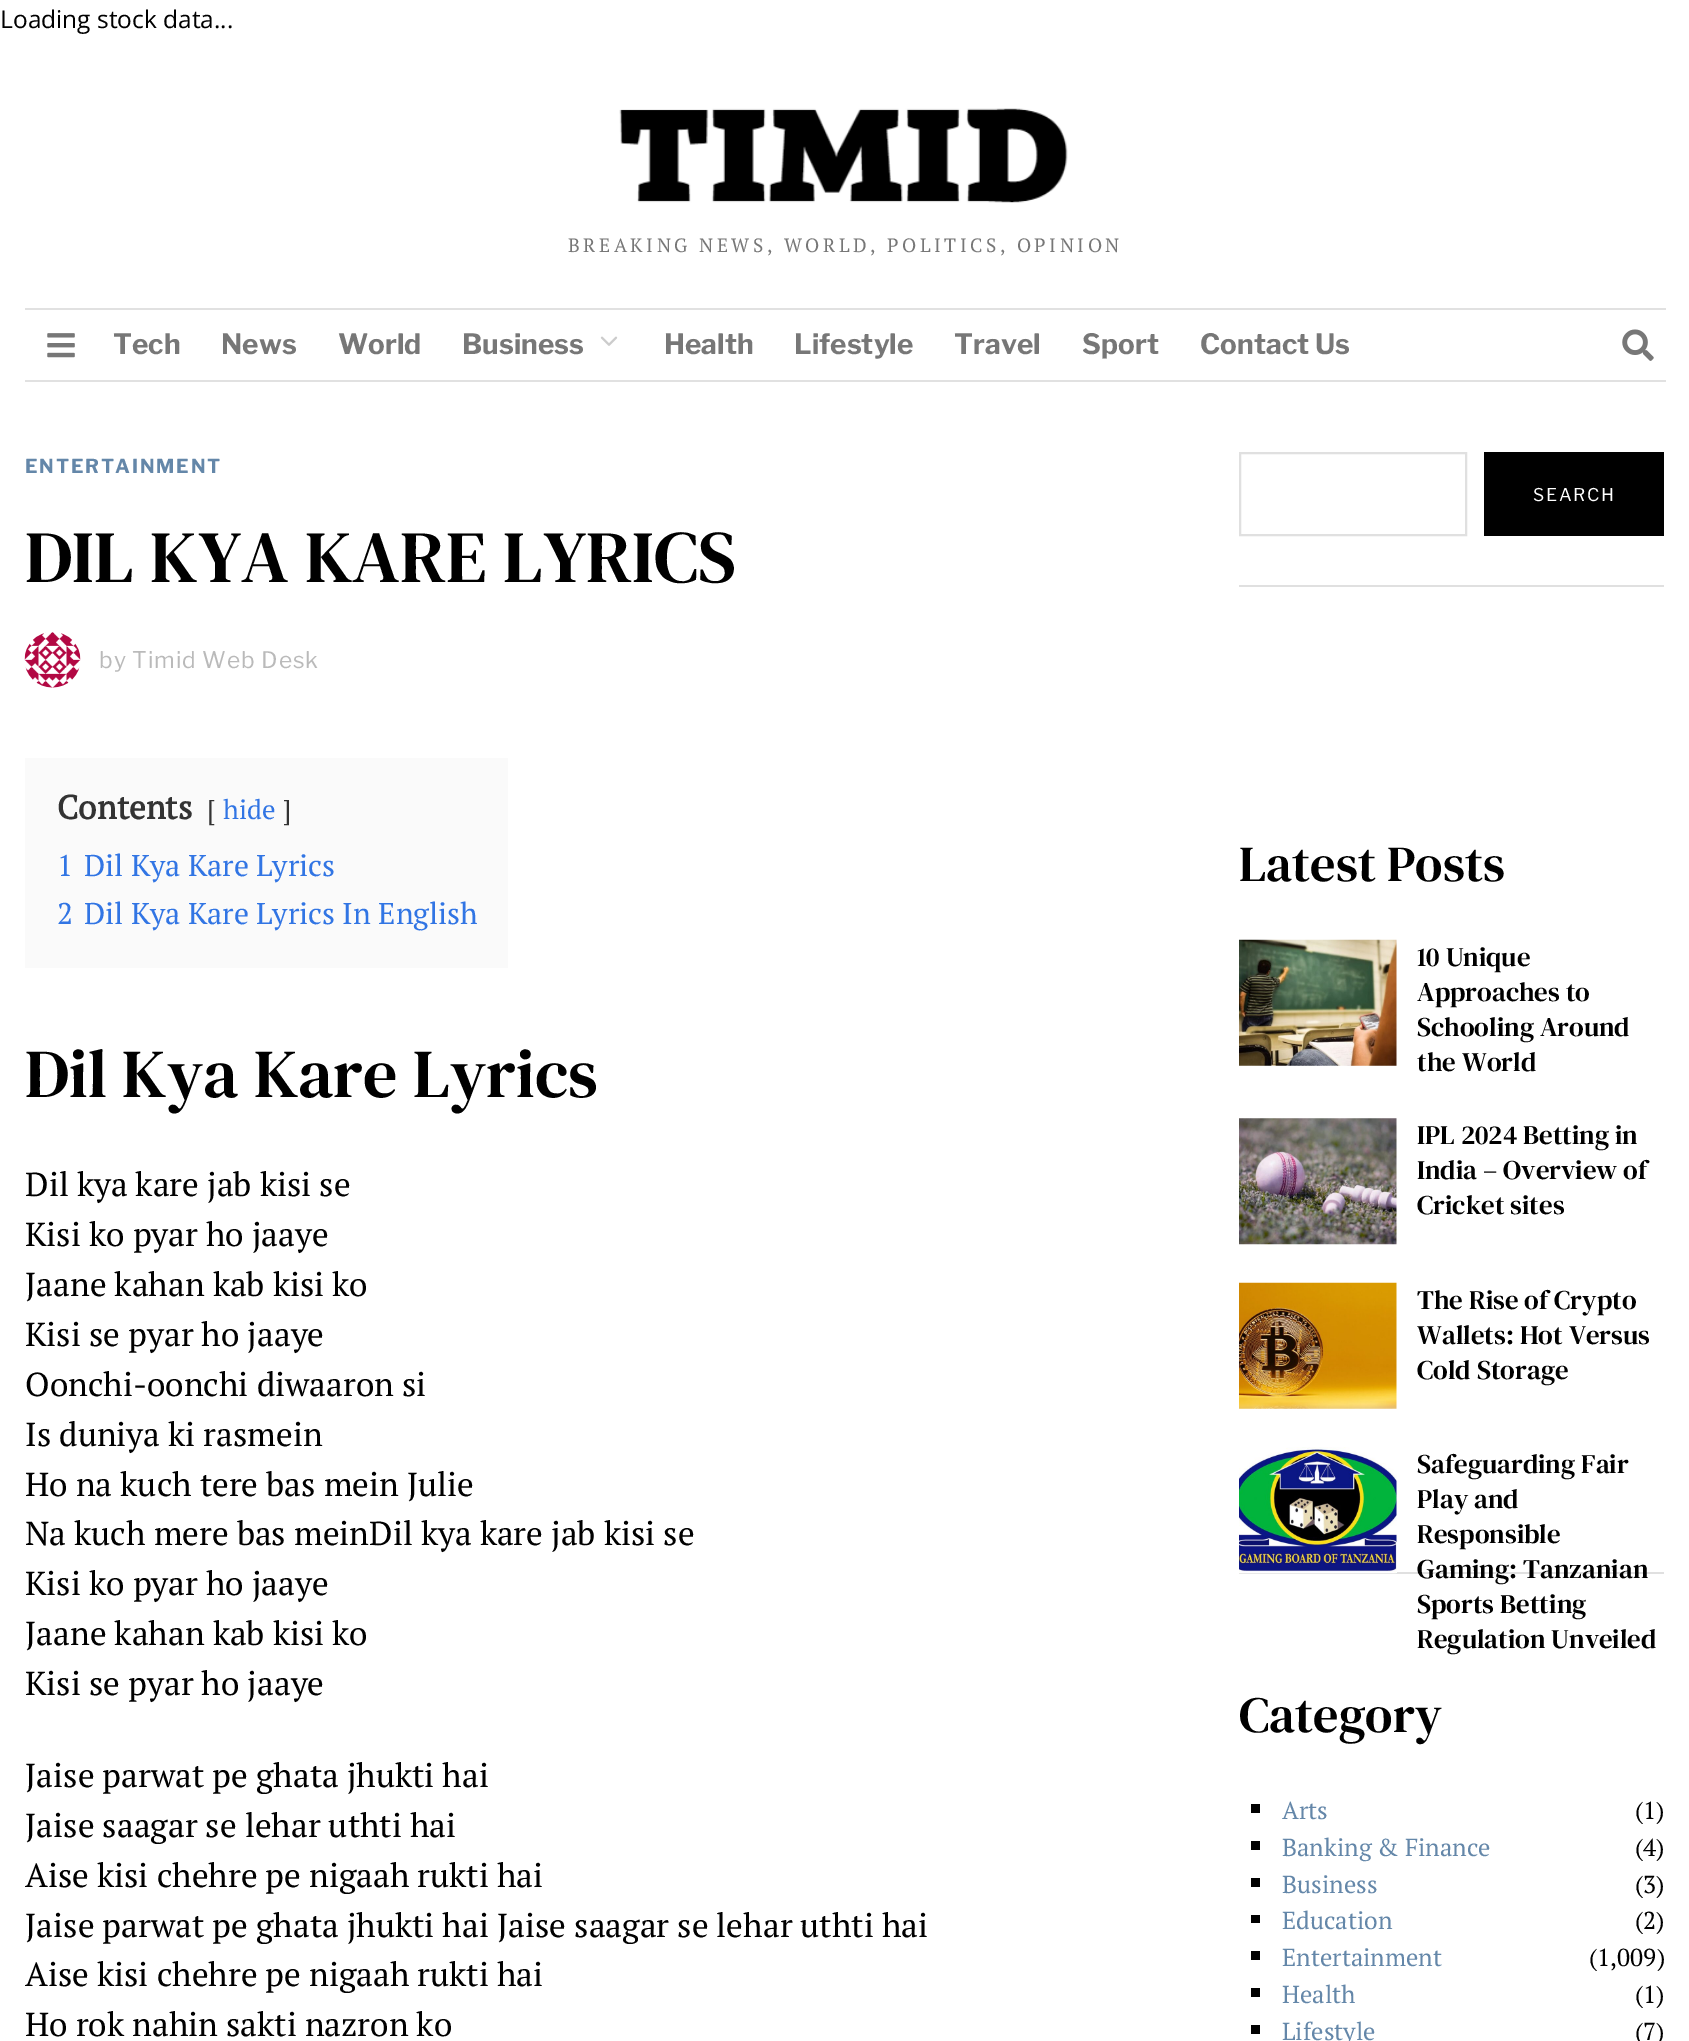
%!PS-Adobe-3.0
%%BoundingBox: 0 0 1689 2041
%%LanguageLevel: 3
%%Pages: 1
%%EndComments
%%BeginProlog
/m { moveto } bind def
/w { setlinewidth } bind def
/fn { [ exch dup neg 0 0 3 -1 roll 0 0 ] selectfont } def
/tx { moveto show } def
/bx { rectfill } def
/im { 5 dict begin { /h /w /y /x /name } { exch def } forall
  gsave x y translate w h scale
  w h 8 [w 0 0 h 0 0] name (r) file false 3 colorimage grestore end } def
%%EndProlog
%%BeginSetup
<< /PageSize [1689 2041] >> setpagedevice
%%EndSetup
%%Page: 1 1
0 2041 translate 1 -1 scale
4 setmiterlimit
1 setgray
0 0 1689 2041 bx
/OpenSans-Regular 24.5 fn
0 setgray
(Loading stock data...) 0 28 tx
(image0.raw) 619 108 449 95 im
/PTSerif-Regular 19.25 fn
0.467 setgray
568 252 m 3.5 0 (BREAKING NEWS, WORLD, POLITICS, OPINION) ashow
0.882 setgray
25 308 1641 2 bx
25 380 1641 2 bx
(image1.raw) 47 333 28 25 im
/LibreFranklin-Bold 28 fn
0.467 setgray
(Tech) 113 354 tx
(News) 221 354 tx
(World) 338 354 tx
(Business) 462 354 tx
(image2.raw) 600 336 18 10 im
(Health) 664 354 tx
(Lifestyle) 794 354 tx
(Travel) 954 354 tx
(Sport) 1082 354 tx
(Contact Us) 1200 354 tx
(image3.raw) 1622 329 32 32 im
/LibreFranklin-Bold 19.25 fn
0.392 0.529 0.663 setrgbcolor
25 473 m 1.75 0 (ENTERTAINMENT) ashow
/DMSerifText-Regular 73.5 fn
0 setgray
(DIL KYA KARE LYRICS) 25 582 tx
(image4.raw) 24 632 57 56 im
/LibreFranklin-Regular 22.75 fn
0.729 setgray
99 668 m 0.9 0 (by Timid Web Desk) ashow
0.98 setgray
25 758 483 210 bx
/PTSerif-Bold 33.25 fn
0.2 setgray
(Contents) 57 819 tx
/PTSerif-Regular 27 fn
([) 207 819 tx
0.192 0.459 0.894 setrgbcolor
(hide) 223 819 tx
0.2 setgray
(]) 283 819 tx
/PTSerif-Regular 30 fn
0.192 0.459 0.894 setrgbcolor
(1) 57 876 tx
(Dil Kya Kare Lyrics) 84 876 tx
(2) 57 924 tx
(Dil Kya Kare Lyrics In English) 84 924 tx
/DMSerifText-Regular 68.5 fn
0 setgray
(Dil Kya Kare Lyrics) 25 1097 tx
/PTSerif-Regular 33.25 fn
(Dil kya kare jab kisi se) 25 1196 tx
(Kisi ko pyar ho jaaye) 25 1246 tx
(Jaane kahan kab kisi ko) 25 1296 tx
(Kisi se pyar ho jaaye) 25 1346 tx
(Oonchi-oonchi diwaaron si) 25 1396 tx
(Is duniya ki rasmein) 25 1446 tx
(Ho na kuch tere bas mein Julie) 25 1496 tx
(Na kuch mere bas meinDil kya kare jab kisi se) 25 1545 tx
(Kisi ko pyar ho jaaye) 25 1595 tx
(Jaane kahan kab kisi ko) 25 1645 tx
(Kisi se pyar ho jaaye) 25 1695 tx
(Jaise parwat pe ghata jhukti hai) 25 1787 tx
(Jaise saagar se lehar uthti hai) 25 1837 tx
(Aise kisi chehre pe nigaah rukti hai) 25 1887 tx
(Jaise parwat pe ghata jhukti hai Jaise saagar se lehar uthti hai) 25 1937 tx
(Aise kisi chehre pe nigaah rukti hai) 25 1986 tx
(Ho rok nahin sakti nazron ko) 25 2036 tx
0.878 setgray
2 w
1240 453 226 82 rectstroke
0 setgray
1484 452 180 84 bx
/LibreFranklin-Regular 17.5 fn
1 setgray
1533 501 m 1.75 0 (SEARCH) ashow
0.878 setgray
1239 585 425 2 bx
/DMSerifText-Regular 50.5 fn
0 setgray
(Latest Posts) 1239 881 tx
(image5.raw) 1239 939 158 127 im
/DMSerifText-Regular 27 fn
(10 Unique) 1417 966 tx
(Approaches to) 1417 1001 tx
(Schooling Around) 1417 1036 tx
(the World) 1417 1071 tx
(image6.raw) 1239 1118 158 127 im
(IPL 2024 Betting in) 1417 1144 tx
(India – Overview of) 1417 1179 tx
(Cricket sites) 1417 1214 tx
(image7.raw) 1239 1282 158 127 im
(The Rise of Crypto) 1417 1309 tx
(Wallets: Hot Versus) 1417 1344 tx
(Cold Storage) 1417 1379 tx
0.878 setgray
1239 1572 425 2 bx
1 setgray
1239 1572 158 1 bx
(image8.raw) 1239 1447 158 127 im
0 setgray
(Safeguarding Fair) 1417 1473 tx
(Play and) 1417 1508 tx
(Responsible) 1417 1543 tx
(Gaming: Tanzanian) 1417 1578 tx
(Sports Betting) 1417 1613 tx
(Regulation Unveiled) 1417 1648 tx
/DMSerifText-Regular 50.5 fn
(Category) 1239 1732 tx
1251 1804 9 9 bx
/PTSerif-Regular 24.5 fn
0.392 0.529 0.663 setrgbcolor
(Arts) 1282 1819 tx
0 setgray
(\(1\)) 1635 1819 tx
1251 1841 9 9 bx
0.392 0.529 0.663 setrgbcolor
(Banking & Finance) 1282 1856 tx
0 setgray
(\(4\)) 1635 1856 tx
1251 1878 9 9 bx
0.392 0.529 0.663 setrgbcolor
(Business) 1282 1893 tx
0 setgray
(\(3\)) 1635 1893 tx
1251 1915 9 8 bx
0.392 0.529 0.663 setrgbcolor
(Education) 1282 1929 tx
0 setgray
(\(2\)) 1635 1929 tx
1251 1951 9 9 bx
0.392 0.529 0.663 setrgbcolor
(Entertainment) 1282 1966 tx
0 setgray
(\(1,009\)) 1589 1966 tx
1251 1988 9 9 bx
0.392 0.529 0.663 setrgbcolor
(Health) 1282 2003 tx
0 setgray
(\(1\)) 1635 2003 tx
1251 2025 9 9 bx
0.392 0.529 0.663 setrgbcolor
(Lifestyle) 1282 2040 tx
0 setgray
(\(7\)) 1635 2040 tx
showpage
%%EOF
